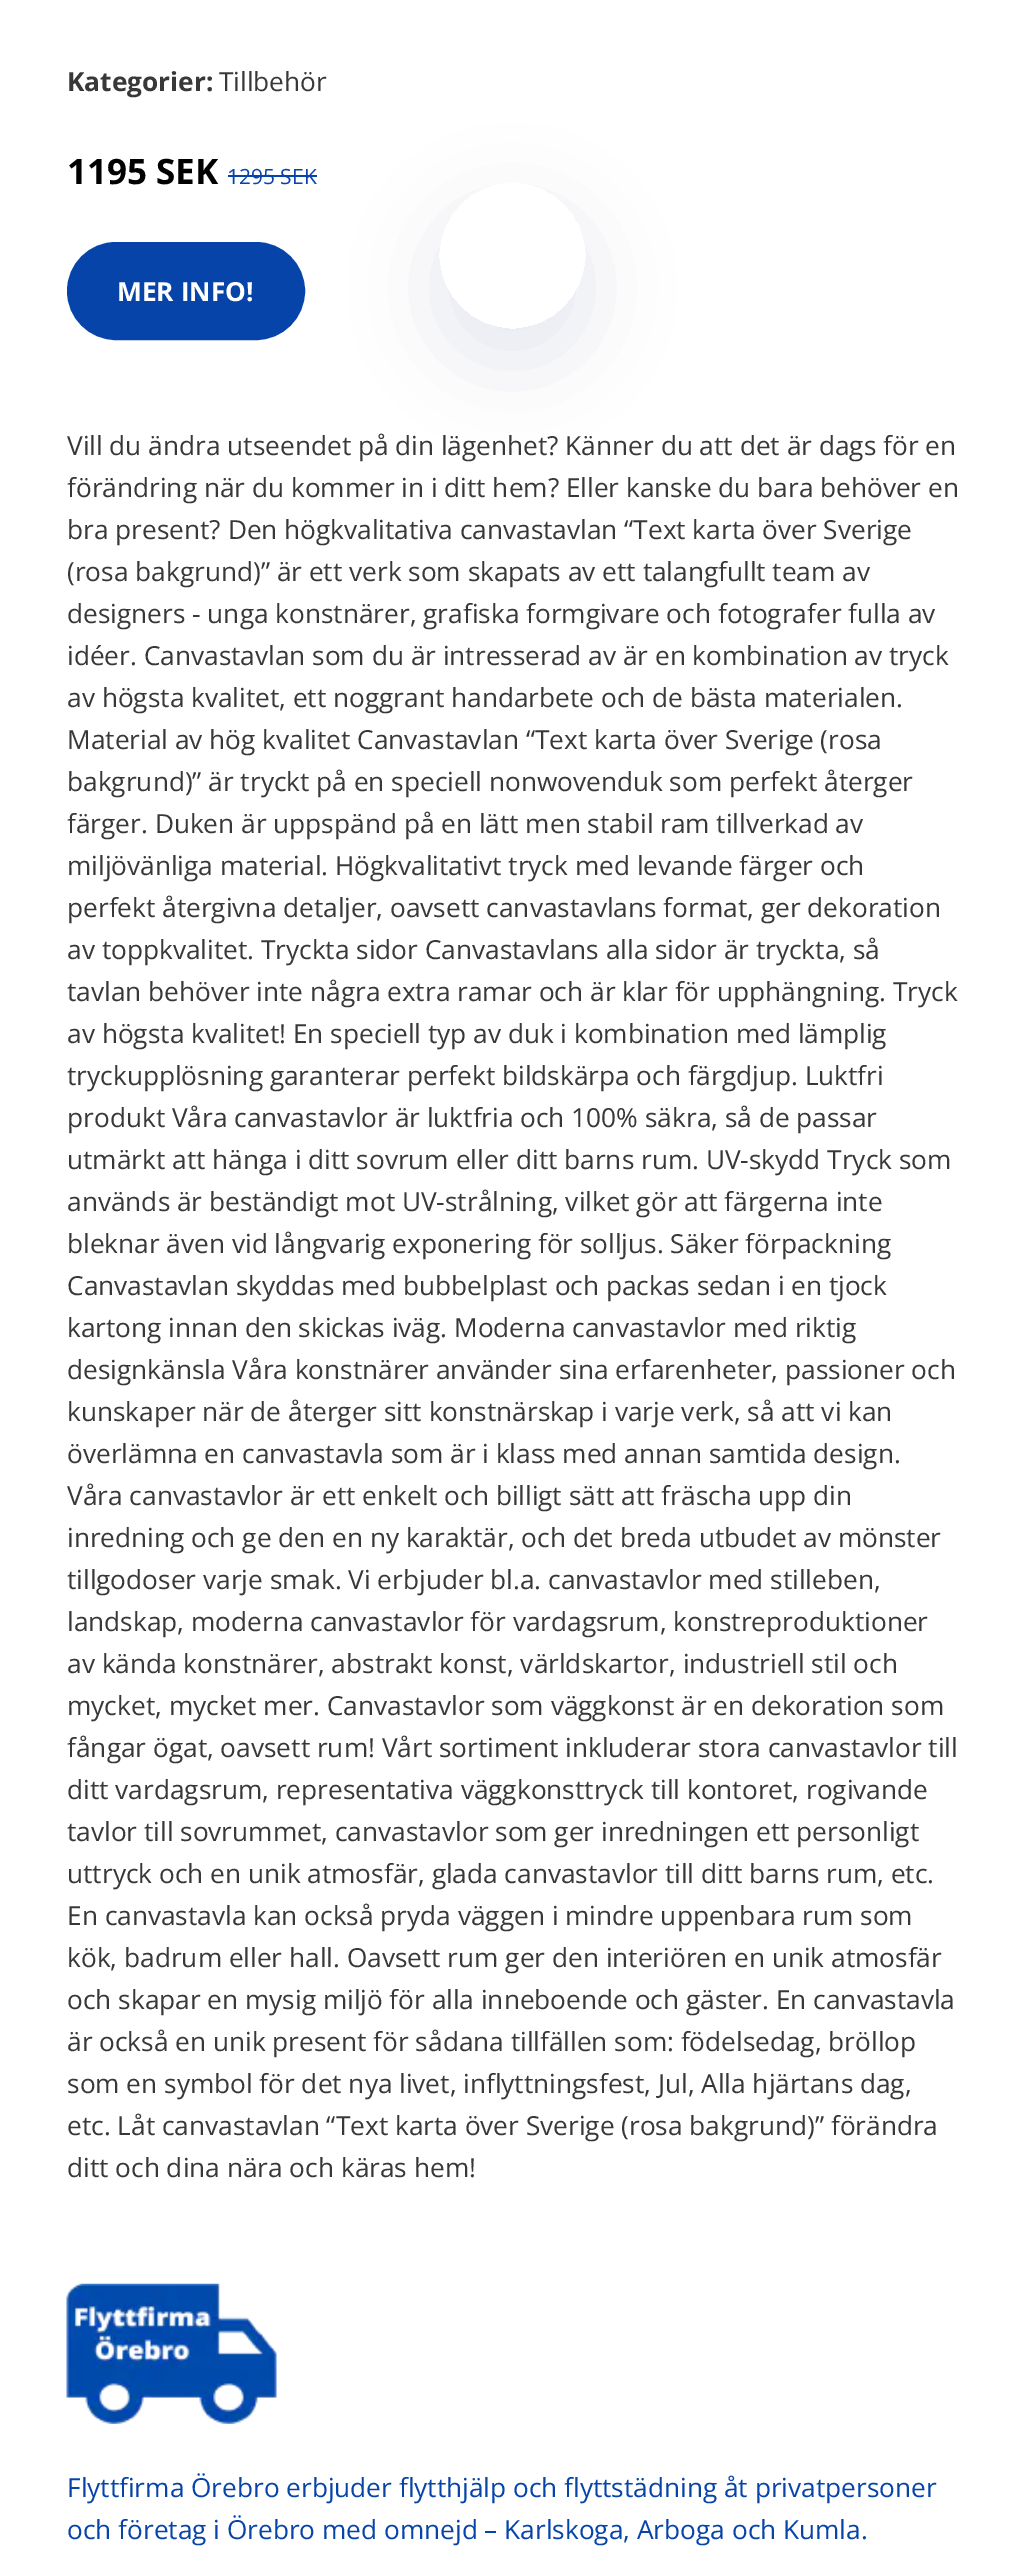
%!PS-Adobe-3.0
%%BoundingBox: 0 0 1025 2570
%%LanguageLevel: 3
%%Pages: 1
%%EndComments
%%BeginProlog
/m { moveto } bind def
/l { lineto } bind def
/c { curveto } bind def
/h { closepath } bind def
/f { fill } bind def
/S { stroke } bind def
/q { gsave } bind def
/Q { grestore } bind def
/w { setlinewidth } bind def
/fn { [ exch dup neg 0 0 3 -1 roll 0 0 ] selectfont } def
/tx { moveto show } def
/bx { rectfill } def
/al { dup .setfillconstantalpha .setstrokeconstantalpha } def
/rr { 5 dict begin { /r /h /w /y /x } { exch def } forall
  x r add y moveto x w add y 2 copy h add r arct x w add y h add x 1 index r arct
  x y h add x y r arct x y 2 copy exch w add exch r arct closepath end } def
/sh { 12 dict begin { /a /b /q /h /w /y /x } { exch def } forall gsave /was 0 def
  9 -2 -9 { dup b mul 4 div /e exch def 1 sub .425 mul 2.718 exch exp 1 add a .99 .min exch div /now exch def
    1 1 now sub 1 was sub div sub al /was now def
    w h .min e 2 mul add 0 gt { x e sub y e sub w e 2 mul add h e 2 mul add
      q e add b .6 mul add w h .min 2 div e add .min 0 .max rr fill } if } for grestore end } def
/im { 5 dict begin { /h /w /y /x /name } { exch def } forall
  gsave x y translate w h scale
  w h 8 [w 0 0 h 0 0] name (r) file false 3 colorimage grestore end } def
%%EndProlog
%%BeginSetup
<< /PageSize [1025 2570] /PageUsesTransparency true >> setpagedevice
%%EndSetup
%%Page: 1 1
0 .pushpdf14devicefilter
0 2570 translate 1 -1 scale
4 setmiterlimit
1 setgray
0 0 1025 2570 bx
/OpenSans-Bold 26.25 fn
0.22 setgray
(Kategorier:) 67 91 tx
/OpenSans-Regular 26.25 fn
(Tillbehör) 219 91 tx
/OpenSans-Bold 35 fn
0 setgray
(1195 SEK) 67 184 tx
/OpenSans-Regular 21 fn
0.024 0.267 0.667 setrgbcolor
(1295 SEK) 227 184 tx
228 175 89 2 bx
68 243 236 96 48 rr q f Q
2 w
S
/OpenSans-Bold 26.25 fn
1 setgray
(MER INFO!) 117 301 tx
/OpenSans-Regular 26.25 fn
0.22 setgray
(Vill du ändra utseendet på din lägenhet? Känner du att det är dags för en) 67 455 tx
(förändring när du kommer in i ditt hem? Eller kanske du bara behöver en) 67 497 tx
(bra present? Den högkvalitativa canvastavlan “Text karta över Sverige) 67 539 tx
(\(rosa bakgrund\)” är ett verk som skapats av ett talangfullt team av) 67 581 tx
(designers - unga konstnärer, grafiska formgivare och fotografer fulla av) 67 623 tx
(idéer. Canvastavlan som du är intresserad av är en kombination av tryck) 67 665 tx
(av högsta kvalitet, ett noggrant handarbete och de bästa materialen.) 67 707 tx
(Material av hög kvalitet Canvastavlan “Text karta över Sverige \(rosa) 67 749 tx
(bakgrund\)” är tryckt på en speciell nonwovenduk som perfekt återger) 67 791 tx
(färger. Duken är uppspänd på en lätt men stabil ram tillverkad av) 67 833 tx
(miljövänliga material. Högkvalitativt tryck med levande färger och) 67 875 tx
(perfekt återgivna detaljer, oavsett canvastavlans format, ger dekoration) 67 917 tx
(av toppkvalitet. Tryckta sidor Canvastavlans alla sidor är tryckta, så) 67 959 tx
(tavlan behöver inte några extra ramar och är klar för upphängning. Tryck) 67 1001 tx
(av högsta kvalitet! En speciell typ av duk i kombination med lämplig) 67 1043 tx
(tryckupplösning garanterar perfekt bildskärpa och färgdjup. Luktfri) 67 1085 tx
(produkt Våra canvastavlor är luktfria och 100% säkra, så de passar) 67 1127 tx
(utmärkt att hänga i ditt sovrum eller ditt barns rum. UV-skydd Tryck som) 67 1169 tx
(används är beständigt mot UV-strålning, vilket gör att färgerna inte) 67 1211 tx
(bleknar även vid långvarig exponering för solljus. Säker förpackning) 67 1253 tx
(Canvastavlan skyddas med bubbelplast och packas sedan i en tjock) 67 1295 tx
(kartong innan den skickas iväg. Moderna canvastavlor med riktig) 67 1337 tx
(designkänsla Våra konstnärer använder sina erfarenheter, passioner och) 67 1379 tx
(kunskaper när de återger sitt konstnärskap i varje verk, så att vi kan) 67 1421 tx
(överlämna en canvastavla som är i klass med annan samtida design.) 67 1463 tx
(Våra canvastavlor är ett enkelt och billigt sätt att fräscha upp din) 67 1505 tx
(inredning och ge den en ny karaktär, och det breda utbudet av mönster) 67 1547 tx
(tillgodoser varje smak. Vi erbjuder bl.a. canvastavlor med stilleben,) 67 1589 tx
(landskap, moderna canvastavlor för vardagsrum, konstreproduktioner) 67 1631 tx
(av kända konstnärer, abstrakt konst, världskartor, industriell stil och) 67 1673 tx
(mycket, mycket mer. Canvastavlor som väggkonst är en dekoration som) 67 1715 tx
(fångar ögat, oavsett rum! Vårt sortiment inkluderar stora canvastavlor till) 67 1757 tx
(ditt vardagsrum, representativa väggkonsttryck till kontoret, rogivande) 67 1799 tx
(tavlor till sovrummet, canvastavlor som ger inredningen ett personligt) 67 1841 tx
(uttryck och en unik atmosfär, glada canvastavlor till ditt barns rum, etc.) 67 1883 tx
(En canvastavla kan också pryda väggen i mindre uppenbara rum som) 67 1925 tx
(kök, badrum eller hall. Oavsett rum ger den interiören en unik atmosfär) 67 1967 tx
(och skapar en mysig miljö för alla inneboende och gäster. En canvastavla) 67 2009 tx
(är också en unik present för sådana tillfällen som: födelsedag, bröllop) 67 2051 tx
(som en symbol för det nya livet, inflyttningsfest, Jul, Alla hjärtans dag,) 67 2093 tx
(etc. Låt canvastavlan “Text karta över Sverige \(rosa bakgrund\)” förändra) 67 2135 tx
(ditt och dina nära och käras hem!) 67 2177 tx
q
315 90 m 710 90 l 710 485 l 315 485 l h 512.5 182 m 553 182 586 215 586 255.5 c 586 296 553 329 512.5 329 c 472 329 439 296 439 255.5 c 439 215 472 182 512.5 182 c h eoclip newpath
0.031 0.071 0.427 setrgbcolor
439 214 147 147 73.5 41 0.1 sh
Q
(image0.raw) 66 2283 211 141 im
0.024 0.267 0.667 setrgbcolor
(Flyttfirma Örebro erbjuder flytthjälp och flyttstädning åt privatpersoner) 67 2497 tx
(och företag i Örebro med omnejd – Karlskoga, Arboga och Kumla.) 67 2539 tx
.poppdf14devicefilter showpage
%%EOF
